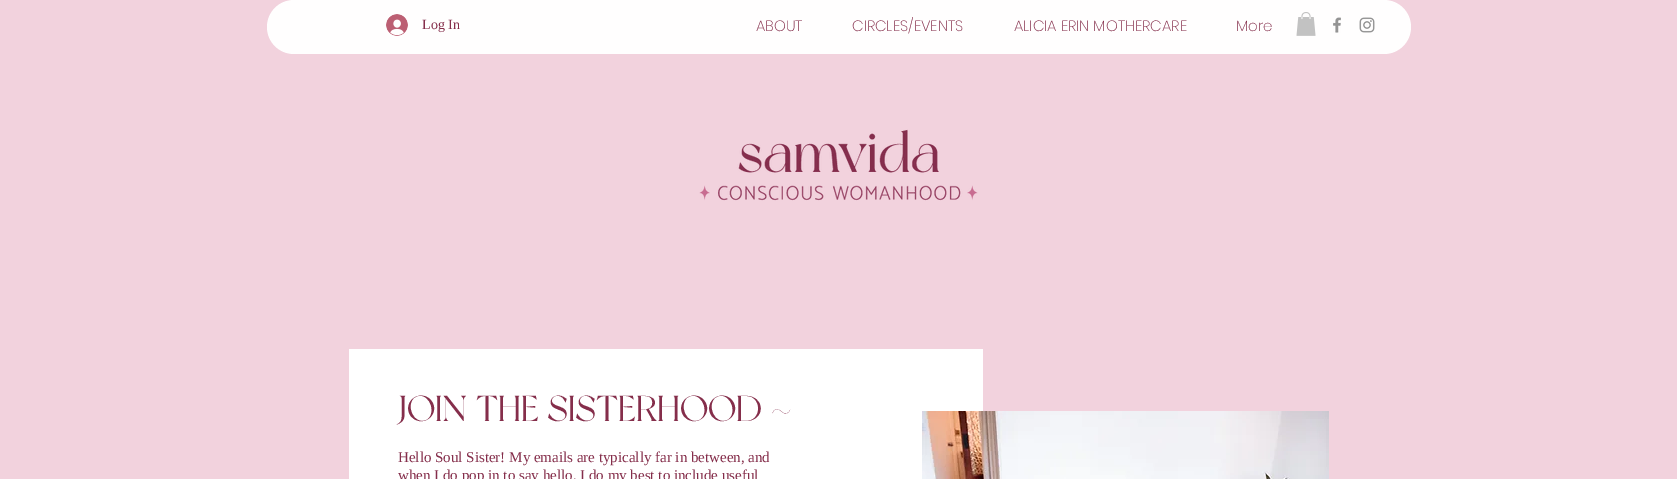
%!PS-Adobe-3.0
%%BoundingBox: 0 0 1677 479
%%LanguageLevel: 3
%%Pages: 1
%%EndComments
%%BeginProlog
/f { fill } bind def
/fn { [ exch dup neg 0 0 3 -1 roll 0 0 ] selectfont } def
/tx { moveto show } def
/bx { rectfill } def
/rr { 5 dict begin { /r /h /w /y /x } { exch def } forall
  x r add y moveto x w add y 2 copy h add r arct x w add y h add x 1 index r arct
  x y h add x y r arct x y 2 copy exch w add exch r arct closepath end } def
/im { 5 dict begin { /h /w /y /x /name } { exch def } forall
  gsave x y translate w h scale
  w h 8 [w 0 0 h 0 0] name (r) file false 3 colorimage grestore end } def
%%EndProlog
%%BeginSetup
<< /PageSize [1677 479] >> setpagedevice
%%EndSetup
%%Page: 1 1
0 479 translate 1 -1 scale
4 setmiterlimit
0.949 0.824 0.867 setrgbcolor
0 0 1677 479 bx
1 0.996 0.996 setrgbcolor
267 0 1144 54 27 rr f
(image0.raw) 386 14 22 22 im
/LiberationSerif-Regular 14 fn
0.522 0.18 0.294 setrgbcolor
(Log In) 422 29 tx
(image1.raw) 1333 17 8 16 im
(image2.raw) 1359 17 16 16 im
/Poppins-ExtraLight 15 fn
(ABOUT) 756 31 tx
(CIRCLES/EVENTS) 852 31 tx
(ALICIA ERIN MOTHERCARE) 1014 31 tx
(More) 1236 31 tx
(image3.raw) 1296 12 20 24 im
(image4.raw) 699 129 279 72 im
1 setgray
349 349 634 130 bx
/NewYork-Regular 36 fn
0.522 0.18 0.294 setrgbcolor
(JOIN THE SISTERHOOD ~) 398 421 tx
/LiberationSerif-Regular 15 fn
(Hello Soul Sister! My emails are typically far in between, and) 398 462 tx
(when I do pop in to say hello, I do my best to include useful) 398 480 tx
(image5.raw) 922 411 407 68 im
showpage
%%EOF
